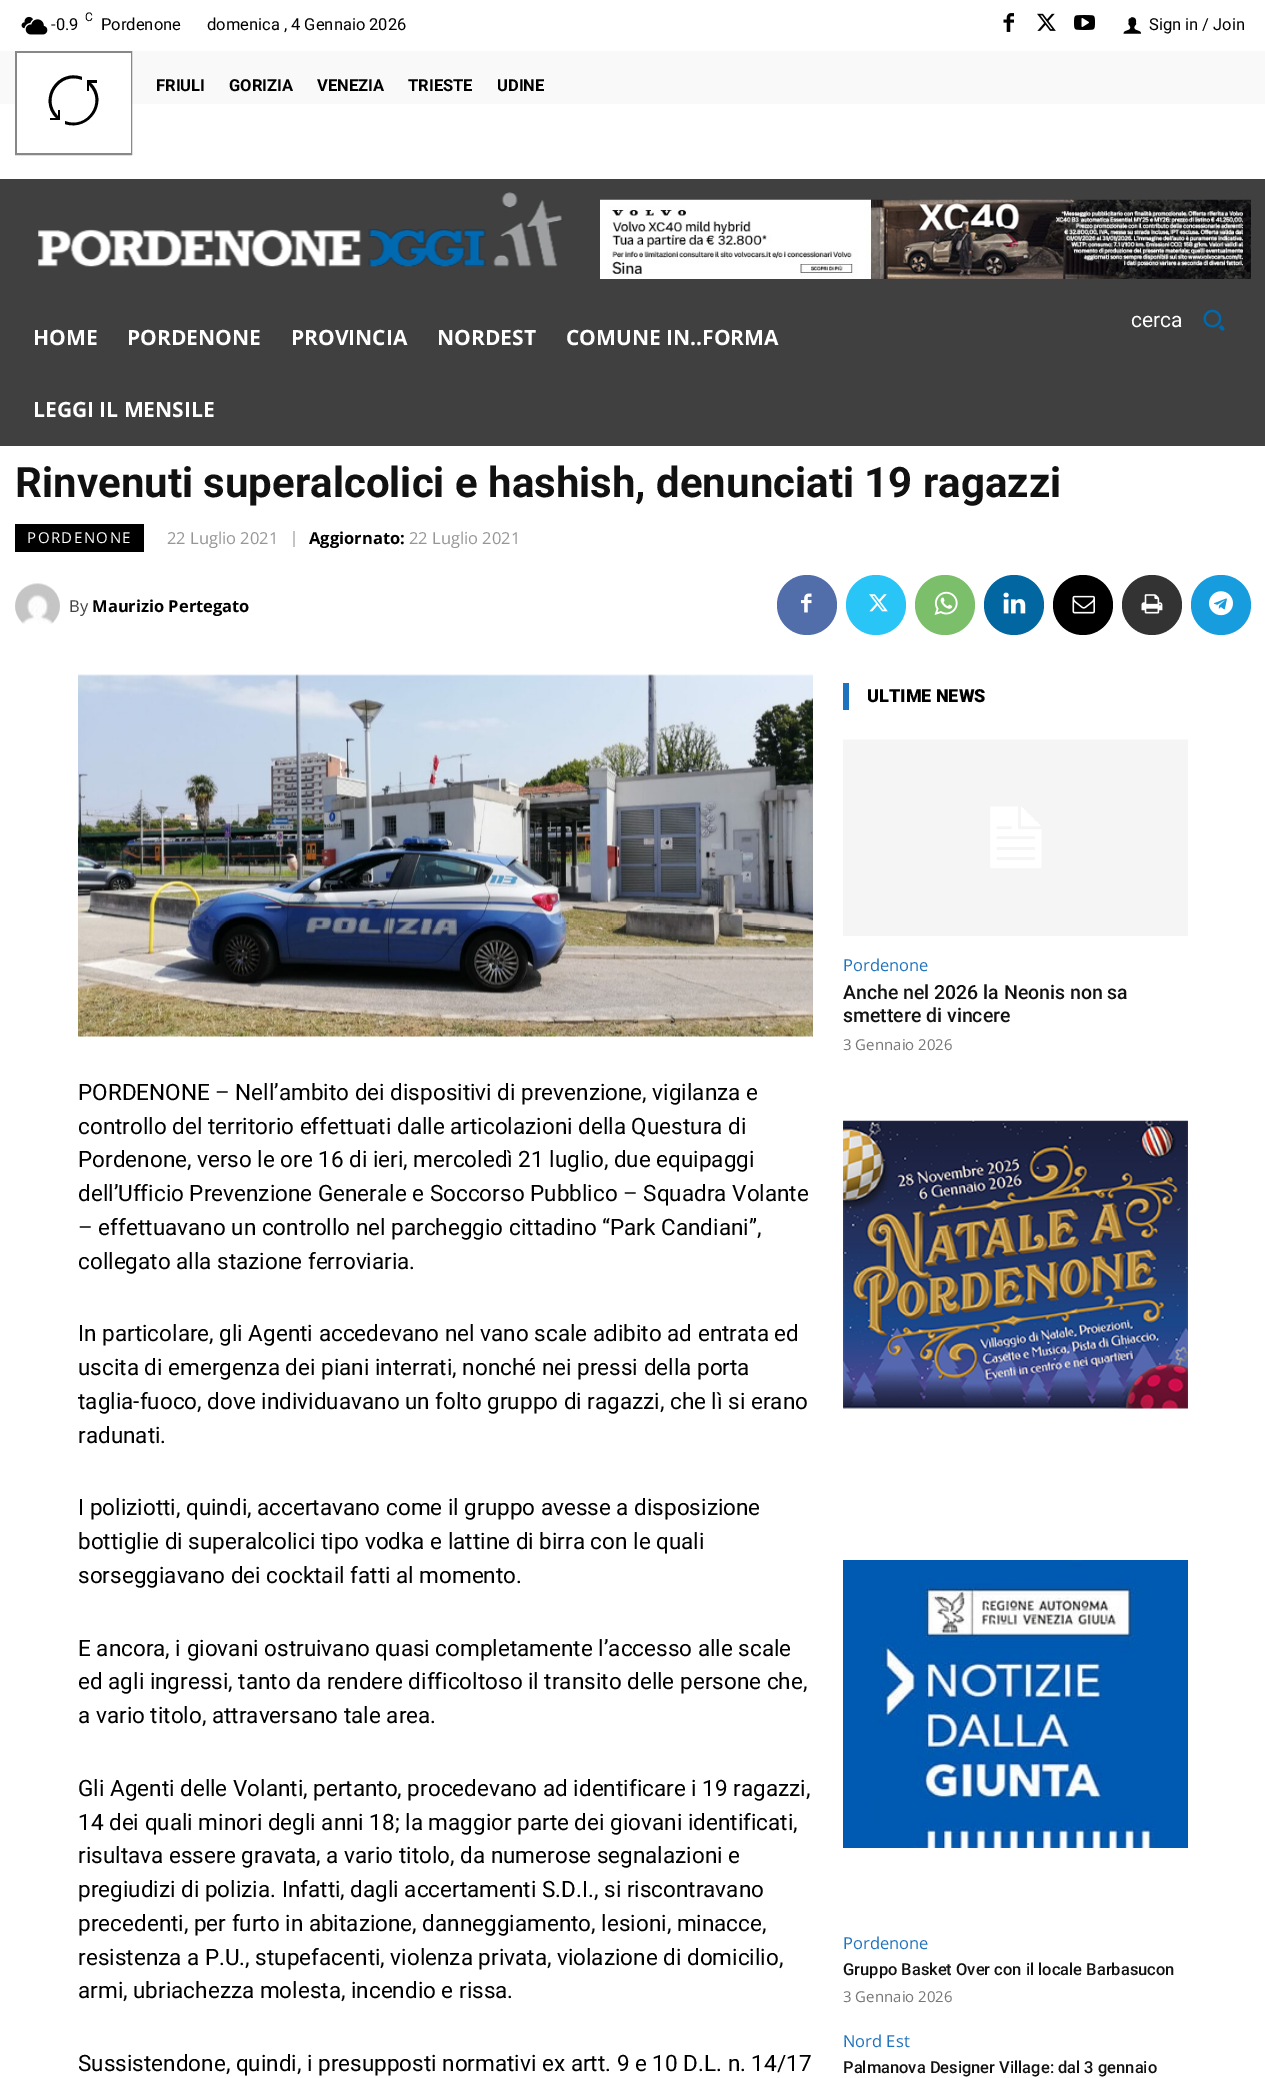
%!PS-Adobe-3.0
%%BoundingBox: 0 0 1265 2078
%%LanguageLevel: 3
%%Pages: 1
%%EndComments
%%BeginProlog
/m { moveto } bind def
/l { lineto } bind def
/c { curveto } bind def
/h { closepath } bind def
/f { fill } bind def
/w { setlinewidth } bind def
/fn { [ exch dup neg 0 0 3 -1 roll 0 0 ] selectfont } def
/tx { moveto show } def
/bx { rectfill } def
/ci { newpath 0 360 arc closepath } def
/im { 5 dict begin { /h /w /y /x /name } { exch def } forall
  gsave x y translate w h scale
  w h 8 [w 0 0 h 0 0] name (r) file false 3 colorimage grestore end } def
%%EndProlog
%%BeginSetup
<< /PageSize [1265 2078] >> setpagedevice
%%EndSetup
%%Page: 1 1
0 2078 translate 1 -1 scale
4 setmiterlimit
1 setgray
0 0 1265 2078 bx
(image0.raw) 21 16 27 19 im
/Roboto-Regular 12 fn
0 setgray
(C) 85 21 tx
/Roboto-Regular 16.5 fn
(-0.9) 51 30 tx
(Pordenone) 101 30 tx
(domenica , 4 Gennaio 2026) 207 30 tx
(image1.raw) 1003 13 11 19 im
(image2.raw) 1037 13 19 18 im
(image3.raw) 1074 15 21 15 im
(image4.raw) 1123 17 19 17 im
(Sign in / Join) 1149 30 tx
0.976 setgray
0 51 1265 53 bx
0.533 setgray
2 w
16 52 115 102 rectstroke
1 setgray
17 53 114 100 bx
0 setgray
97 83 m 97 80 l 87 80 l 87 91 l 89 91 l 89 85 l 106 102 87 130 65 121 c 65 124 l 89 132 110 102 91 83 c h 58 116 m 41 99 60 71 82 80 c 82 77 l 58 68 37 99 56 118 c 50 118 l 50 120 l 60 120 l 60 110 l 58 110 l h f
/Roboto-Bold 16.5 fn
(FRIULI) 156 91 tx
(GORIZIA) 229 91 tx
(VENEZIA) 317 91 tx
(TRIESTE) 408 91 tx
(UDINE) 497 91 tx
0.251 setgray
0 179 1265 267 bx
(image5.raw) 38 192 525 75 im
(image6.raw) 600 199 651 80 im
/Roboto-Regular 21 fn
1 setgray
(cerca) 1131 327 tx
(image7.raw) 1203 309 22 22 im
/OpenSans-Bold 21 fn
(HOME) 33 345 tx
(PORDENONE) 127 345 tx
(PROVINCIA) 291 345 tx
(NORDEST) 437 345 tx
(COMUNE IN..FORMA) 566 345 tx
(LEGGI IL MENSILE) 33 417 tx
/Roboto-Bold 42 fn
0.067 setgray
(Rinvenuti superalcolici e hashish, denunciati 19 ragazzi) 15 497 tx
0 setgray
15 524 129 28 bx
/OpenSans-Regular 15 fn
1 setgray
27 543 m 1.5 0 (PORDENONE) ashow
/OpenSans-Regular 16.5 fn
0.588 setgray
(22 Luglio 2021) 167 544 tx
0.769 setgray
293 531 2 16 bx
/OpenSans-Bold 16.5 fn
0 setgray
(Aggiornato:) 309 544 tx
/OpenSans-Regular 16.5 fn
0.588 setgray
(22 Luglio 2021) 409 544 tx
(image8.raw) 15 583 45 41 im
0.267 setgray
(By) 69 612 tx
/OpenSans-Bold 16.5 fn
0 setgray
(Maurizio Pertegato) 92 612 tx
0.318 0.431 0.671 setrgbcolor
807 605 30 ci f
(image9.raw) 801 593 11 20 im
0.161 0.773 0.965 setrgbcolor
876 605 30 ci f
(image10.raw) 869 594 19 18 im
0.482 0.749 0.416 setrgbcolor
945 605 30 ci f
(image11.raw) 934 591 24 24 im
0.008 0.4 0.627 setrgbcolor
1014 605 30 ci f
(image12.raw) 1003 592 23 22 im
0 setgray
1083 605 30 ci f
(image13.raw) 1072 595 23 19 im
0.2 setgray
1152 605 30 ci f
(image14.raw) 1141 594 22 20 im
0.09 0.612 0.871 setrgbcolor
1221 605 30 ci f
(image15.raw) 1209 591 24 25 im
(image16.raw) 78 674 735 363 im
/Roboto-Regular 22.5 fn
0 setgray
(PORDENONE – Nell’ambito dei dispositivi di prevenzione, vigilanza e) 78 1100 tx
(controllo del territorio effettuati dalle articolazioni della Questura di) 78 1134 tx
(Pordenone, verso le ore 16 di ieri, mercoledì 21 luglio, due equipaggi) 78 1167 tx
(dell’Ufficio Prevenzione Generale e Soccorso Pubblico – Squadra Volante) 78 1201 tx
(– effettuavano un controllo nel parcheggio cittadino “Park Candiani”,) 78 1235 tx
(collegato alla stazione ferroviaria.) 78 1269 tx
(In particolare, gli Agenti accedevano nel vano scale adibito ad entrata ed) 78 1341 tx
(uscita di emergenza dei piani interrati, nonché nei pressi della porta) 78 1375 tx
(taglia-fuoco, dove individuavano un folto gruppo di ragazzi, che lì si erano) 78 1409 tx
(radunati.) 78 1443 tx
(I poliziotti, quindi, accertavano come il gruppo avesse a disposizione) 78 1515 tx
(bottiglie di superalcolici tipo vodka e lattine di birra con le quali) 78 1549 tx
(sorseggiavano dei cocktail fatti al momento.) 78 1583 tx
(E ancora, i giovani ostruivano quasi completamente l’accesso alle scale) 78 1656 tx
(ed agli ingressi, tanto da rendere difficoltoso il transito delle persone che,) 78 1689 tx
(a vario titolo, attraversano tale area.) 78 1723 tx
(Gli Agenti delle Volanti, pertanto, procedevano ad identificare i 19 ragazzi,) 78 1796 tx
(14 dei quali minori degli anni 18; la maggior parte dei giovani identificati,) 78 1830 tx
(risultava essere gravata, a vario titolo, da numerose segnalazioni e) 78 1863 tx
(pregiudizi di polizia. Infatti, dagli accertamenti S.D.I., si riscontravano) 78 1897 tx
(precedenti, per furto in abitazione, danneggiamento, lesioni, minacce,) 78 1931 tx
(resistenza a P.U., stupefacenti, violenza privata, violazione di domicilio,) 78 1965 tx
(armi, ubriachezza molesta, incendio e rissa.) 78 1998 tx
(Sussistendone, quindi, i presupposti normativi ex artt. 9 e 10 D.L. n. 14/17) 78 2071 tx
0.118 0.451 0.745 setrgbcolor
843 683 6 27 bx
/Roboto-Black 18 fn
0 setgray
(ULTIME NEWS) 867 702 tx
(image17.raw) 843 739 345 197 im
/OpenSans-Regular 16.5 fn
0.118 0.451 0.745 setrgbcolor
(Pordenone) 843 971 tx
/Roboto-Medium 19.5 fn
0.067 setgray
(Anche nel 2026 la Neonis non sa) 843 999 tx
(smettere di vincere) 843 1022 tx
/OpenSans-Regular 15 fn
0.463 setgray
(3 Gennaio 2026) 843 1050 tx
(image18.raw) 843 1120 345 289 im
(image19.raw) 843 1560 345 288 im
/OpenSans-Regular 16.5 fn
0.118 0.451 0.745 setrgbcolor
(Pordenone) 843 1949 tx
/Roboto-Medium 16.5 fn
0.067 setgray
(Gruppo Basket Over con il locale Barbasucon) 843 1975 tx
/OpenSans-Regular 15 fn
0.463 setgray
(3 Gennaio 2026) 843 2002 tx
/OpenSans-Regular 16.5 fn
0.118 0.451 0.745 setrgbcolor
(Nord Est) 843 2047 tx
/Roboto-Medium 16.5 fn
0.067 setgray
(Palmanova Designer Village: dal 3 gennaio) 843 2073 tx
showpage
%%EOF
